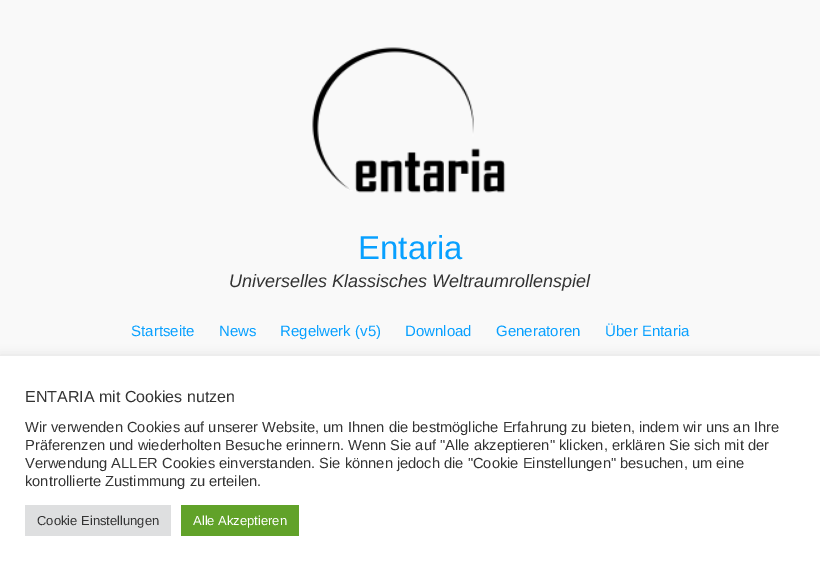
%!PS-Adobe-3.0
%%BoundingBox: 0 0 820 566
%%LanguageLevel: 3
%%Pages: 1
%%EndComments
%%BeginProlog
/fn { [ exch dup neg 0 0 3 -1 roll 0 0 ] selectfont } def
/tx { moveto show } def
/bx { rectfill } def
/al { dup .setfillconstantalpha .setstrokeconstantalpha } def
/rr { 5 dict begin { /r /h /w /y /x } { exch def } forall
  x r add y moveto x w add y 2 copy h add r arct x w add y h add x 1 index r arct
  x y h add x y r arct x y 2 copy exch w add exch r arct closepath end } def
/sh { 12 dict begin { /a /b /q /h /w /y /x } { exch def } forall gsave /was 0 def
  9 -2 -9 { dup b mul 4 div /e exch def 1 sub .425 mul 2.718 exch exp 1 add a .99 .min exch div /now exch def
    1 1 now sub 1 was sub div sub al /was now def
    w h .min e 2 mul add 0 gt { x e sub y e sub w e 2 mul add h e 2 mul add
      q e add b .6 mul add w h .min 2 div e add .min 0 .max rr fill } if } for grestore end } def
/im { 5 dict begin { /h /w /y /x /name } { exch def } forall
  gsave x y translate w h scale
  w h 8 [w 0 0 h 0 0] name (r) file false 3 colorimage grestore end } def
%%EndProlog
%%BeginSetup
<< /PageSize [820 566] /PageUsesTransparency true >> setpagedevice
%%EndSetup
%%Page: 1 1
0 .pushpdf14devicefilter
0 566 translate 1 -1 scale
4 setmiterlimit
0.976 setgray
0 0 820 566 bx
(image0.raw) 312 47 194 146 im
/LiberationSans-Regular 33 fn
0.031 0.627 1 setrgbcolor
(Entaria) 358 259 tx
/LiberationSans-Italic 18 fn
0.2 setgray
(Universelles Klassisches Weltraumrollenspiel) 229 287 tx
/LiberationSans-Regular 15 fn
0.031 0.627 1 setrgbcolor
(Startseite) 131 336 tx
(News) 219 336 tx
(Regelwerk \(v5\)) 280 336 tx
(Download) 405 336 tx
(Generatoren) 496 336 tx
(Über Entaria) 605 336 tx
0.675 0.671 0.671 setrgbcolor
0 355 820 210 0 5 0.3 sh
1 setgray
0 356 820 210 bx
/LiberationSans-Regular 16 fn
0.2 setgray
(ENTARIA mit Cookies nutzen) 25 402 tx
/LiberationSans-Regular 14.67 fn
(Wir verwenden Cookies auf unserer Website, um Ihnen die bestmögliche Erfahrung zu bieten, indem wir uns an Ihre) 25 432 tx
(Präferenzen und wiederholten Besuche erinnern. Wenn Sie auf "Alle akzeptieren" klicken, erklären Sie sich mit der) 25 450 tx
(Verwendung ALLER Cookies einverstanden. Sie können jedoch die "Cookie Einstellungen" besuchen, um eine) 25 468 tx
(kontrollierte Zustimmung zu erteilen.) 25 486 tx
0.871 0.875 0.878 setrgbcolor
25 505 146 31 bx
/LiberationSans-Regular 13 fn
0.2 setgray
(Cookie Einstellungen) 37 525 tx
0.38 0.635 0.161 setrgbcolor
181 505 118 31 bx
1 setgray
(Alle Akzeptieren) 193 525 tx
.poppdf14devicefilter showpage
%%EOF
